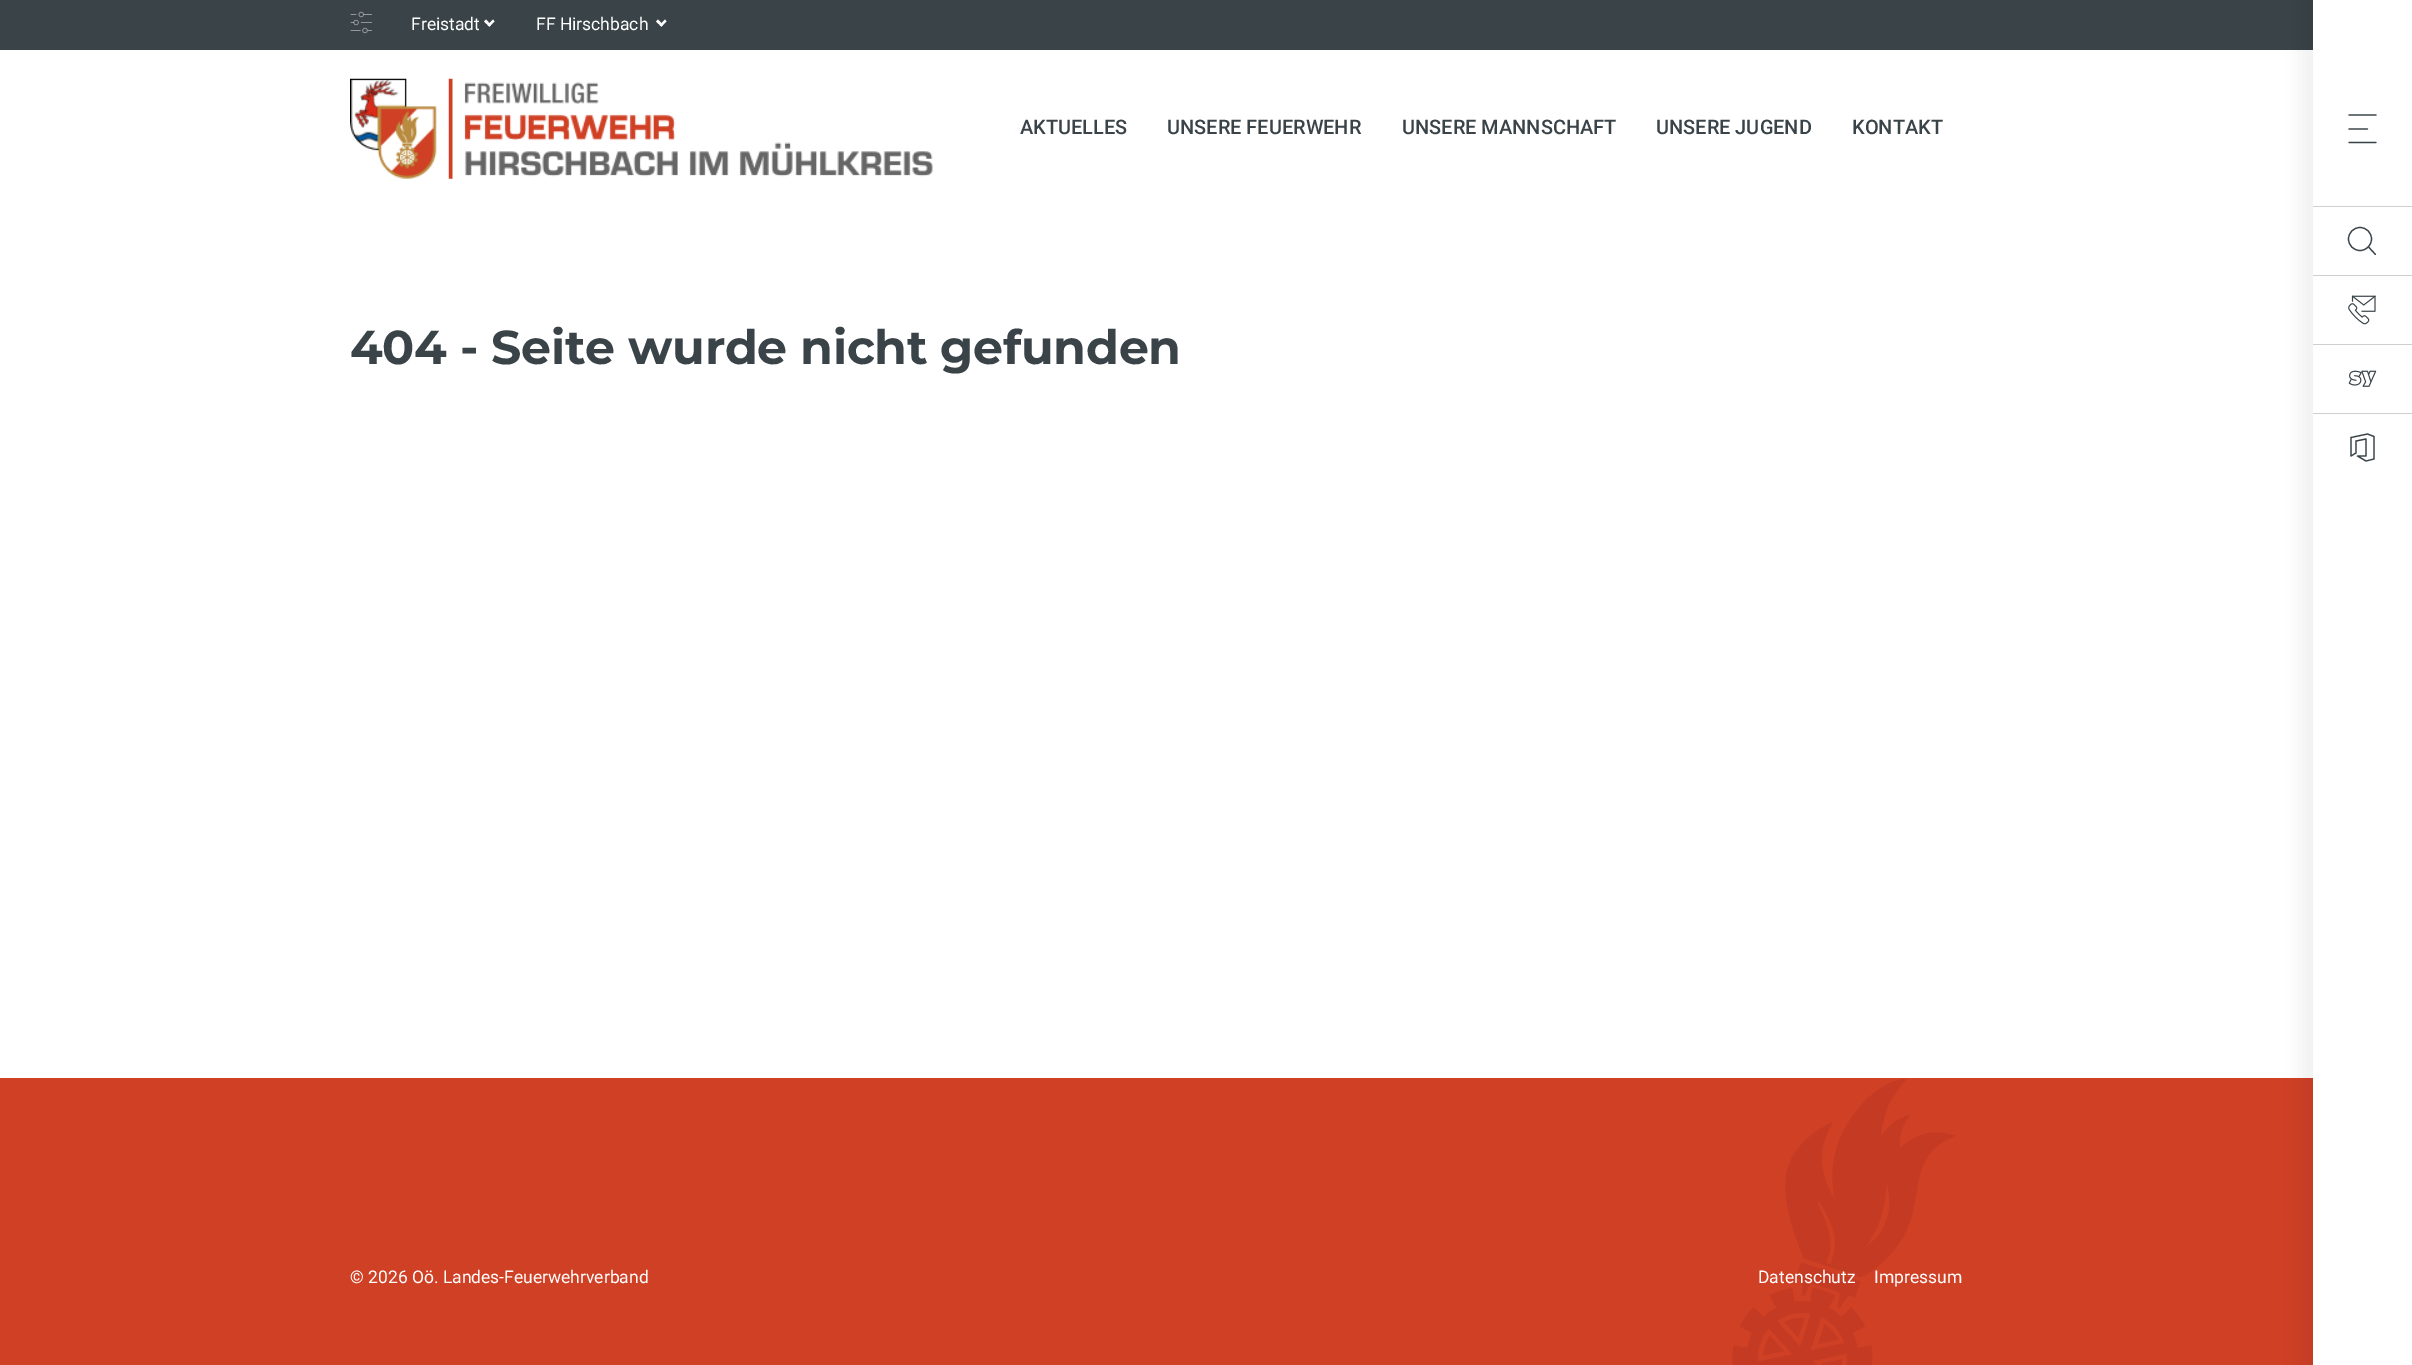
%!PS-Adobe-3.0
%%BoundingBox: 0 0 2412 1365
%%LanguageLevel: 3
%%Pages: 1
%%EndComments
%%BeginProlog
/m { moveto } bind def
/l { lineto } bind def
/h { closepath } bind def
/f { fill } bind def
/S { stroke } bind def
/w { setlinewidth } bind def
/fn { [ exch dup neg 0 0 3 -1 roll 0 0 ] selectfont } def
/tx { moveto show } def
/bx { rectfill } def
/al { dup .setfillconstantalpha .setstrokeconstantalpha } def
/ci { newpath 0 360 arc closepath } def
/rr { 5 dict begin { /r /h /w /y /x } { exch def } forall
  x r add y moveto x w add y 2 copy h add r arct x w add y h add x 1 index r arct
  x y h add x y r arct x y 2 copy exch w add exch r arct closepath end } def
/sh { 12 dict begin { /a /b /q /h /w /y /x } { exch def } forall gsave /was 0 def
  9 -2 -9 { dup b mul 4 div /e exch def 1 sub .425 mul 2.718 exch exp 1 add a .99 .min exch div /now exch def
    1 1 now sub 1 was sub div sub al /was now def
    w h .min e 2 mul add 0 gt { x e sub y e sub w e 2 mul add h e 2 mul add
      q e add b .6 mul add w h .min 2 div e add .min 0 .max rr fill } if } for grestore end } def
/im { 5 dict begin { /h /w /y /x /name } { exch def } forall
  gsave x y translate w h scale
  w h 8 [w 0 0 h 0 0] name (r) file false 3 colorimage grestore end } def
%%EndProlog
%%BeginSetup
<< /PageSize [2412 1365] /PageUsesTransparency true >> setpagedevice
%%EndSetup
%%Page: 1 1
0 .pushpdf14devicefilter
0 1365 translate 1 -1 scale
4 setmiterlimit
1 setgray
0 0 2412 1365 bx
0.224 0.263 0.282 setrgbcolor
0 0 2313 50 bx
(image0.raw) 350 11 22 23 im
/Roboto-Regular 17.5 fn
1 setgray
(Freistadt) 411 30 tx
493 19.5 m 494.5 21.5 l 489.5 26.5 l 487.5 25 l h f
486 19.5 m 491 25 l 489.5 26.5 l 484 21.5 l h f
(FF Hirschbach) 536 30 tx
665 19.5 m 666.5 21.5 l 661.5 26.5 l 659.5 25 l h f
658 19.5 m 663 25 l 661.5 26.5 l 656 21.5 l h f
0.812 0.251 0.145 setrgbcolor
0 1078 2313 287 bx
0 setgray
2300 -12 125 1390 0 9.5 0.05 sh
1 setgray
2313 0 99 1365 bx
0.804 0.816 0.82 setrgbcolor
2313 206 99 1 bx
0.224 0.263 0.282 setrgbcolor
1.2 w
2360 239 11.5 ci S
1 setlinecap
1 setlinejoin
2369 247.5 m 2375.5 254.5 l S
0.804 0.816 0.82 setrgbcolor
2313 275 99 1 bx
(image1.raw) 2348 295 28 30 im
2313 344 99 1 bx
(image2.raw) 2348 370 29 17 im
2313 413 99 1 bx
0.224 0.263 0.282 setrgbcolor
2351 456 m 2356 453 l 2356 441 l 2366 439 l 2366 456 l 2357.5 456 l 2366 461 l 2374 459 l 2374 436.5 l 2367.5 434 l 2351 437.5 l h S
(image3.raw) 350 78 583 101 im
/Roboto-Medium 20 fn
(AKTUELLES) 1020 134 tx
(UNSERE FEUERWEHR) 1167 134 tx
(UNSERE MANNSCHAFT) 1402 134 tx
(UNSERE JUGEND) 1656 134 tx
(KONTAKT) 1852 134 tx
2349 129 m 2367.5 129 l 2349 115 m 2376 115 l 2349 142.5 m 2376 142.5 l S
/Montserrat-Thin 47.5 fn
350 364 m -0.3 0 (404 - Seite wurde nicht gefunden) ashow
(image4.raw) 1732 1079 223 286 im
/Roboto-Regular 17.5 fn
1 setgray
(© 2026 Oö. Landes-Feuerwehrverband) 350 1283 tx
(Datenschutz) 1758 1283 tx
(Impressum) 1874 1283 tx
.poppdf14devicefilter showpage
%%EOF
